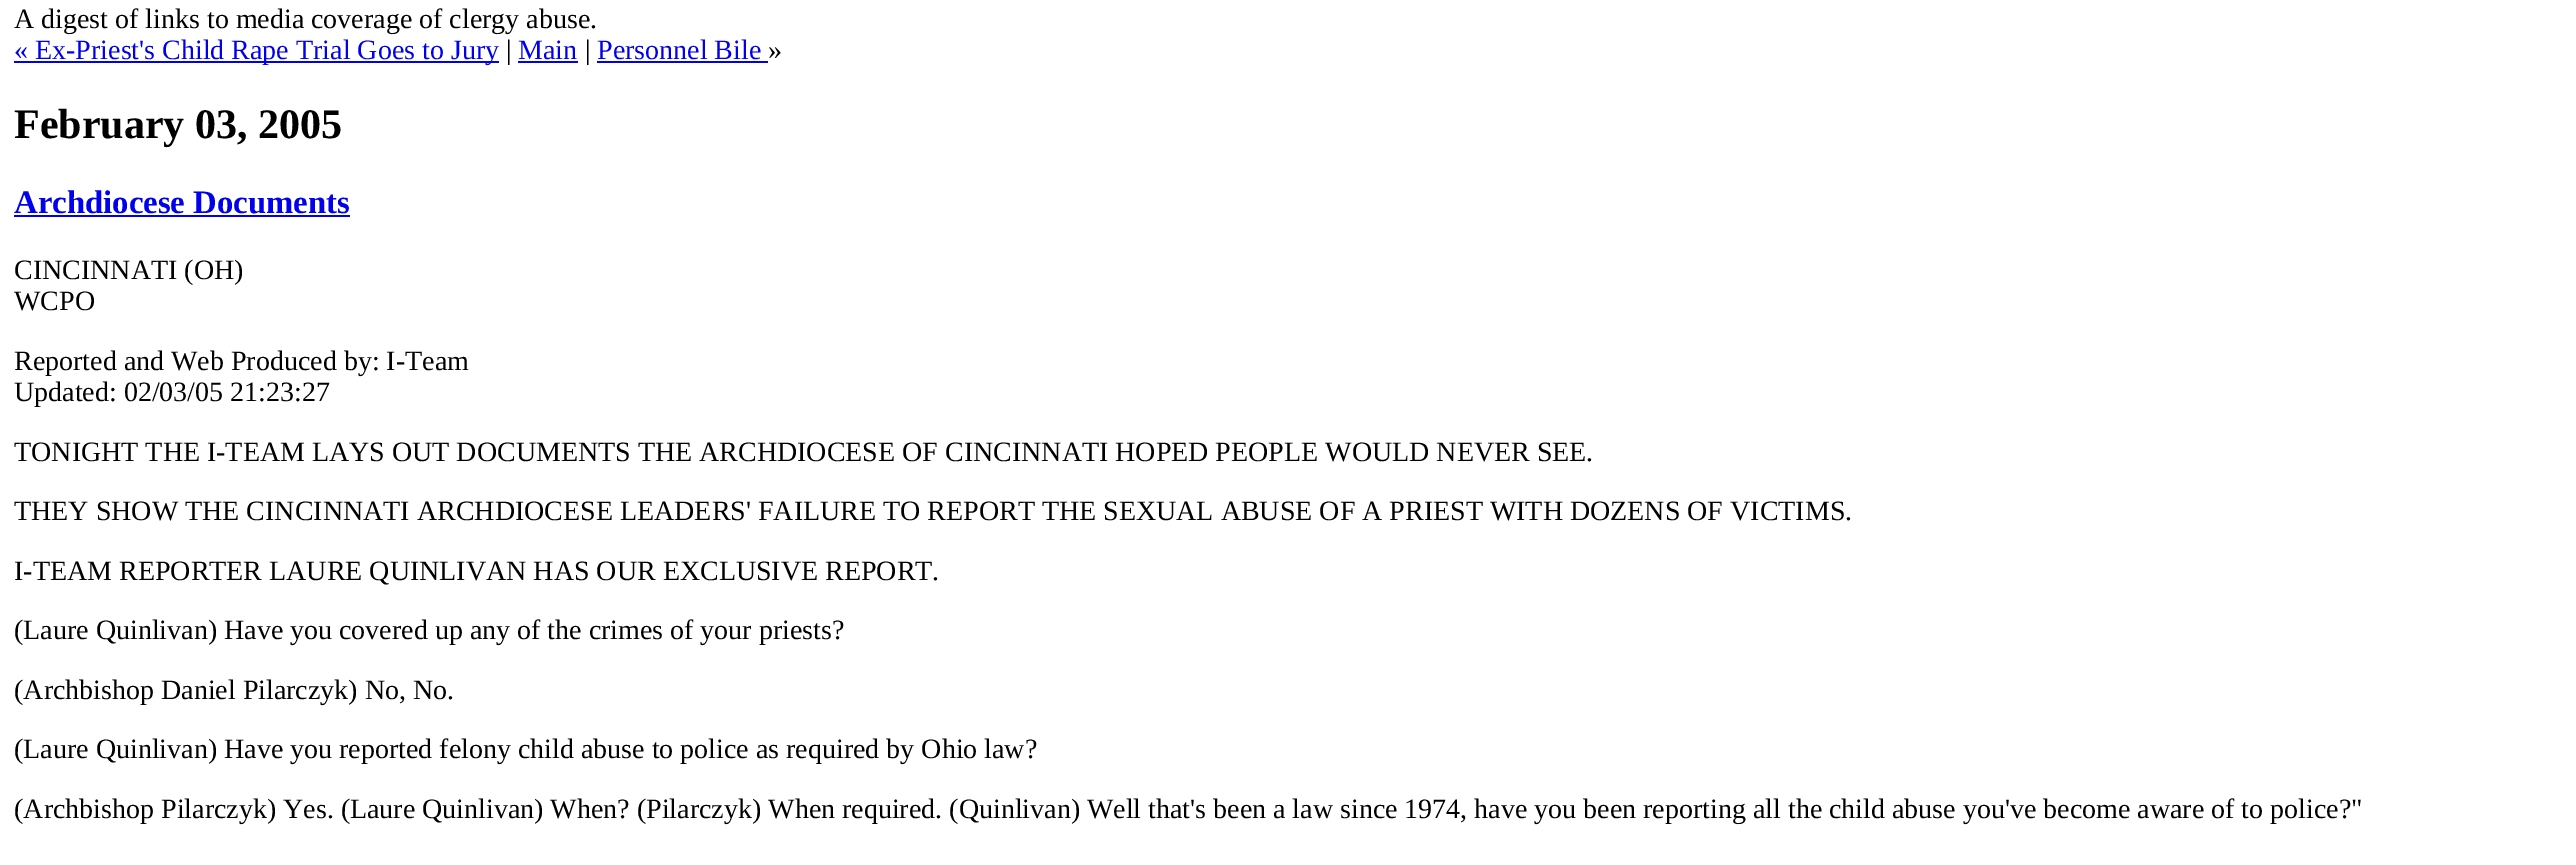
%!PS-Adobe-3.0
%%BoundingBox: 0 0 2576 865
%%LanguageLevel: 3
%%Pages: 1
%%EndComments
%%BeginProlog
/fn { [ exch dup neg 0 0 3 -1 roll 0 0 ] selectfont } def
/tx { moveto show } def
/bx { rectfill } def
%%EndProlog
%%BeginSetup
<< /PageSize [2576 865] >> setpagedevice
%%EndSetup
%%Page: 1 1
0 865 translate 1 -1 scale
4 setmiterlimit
1 setgray
0 0 2576 865 bx
/LiberationSerif-Regular 28 fn
0 setgray
(A digest of links to media coverage of clergy abuse.) 14 28 tx
0 0 0.933 setrgbcolor
14 61 485 2 bx
(« Ex-Priest's Child Rape Trial Goes to Jury) 14 59 tx
0 setgray
(|) 506 59 tx
0 0 0.933 setrgbcolor
(Main) 518 59 tx
518 61 60 2 bx
0 setgray
(|) 585 59 tx
0 0 0.933 setrgbcolor
(Personnel Bile) 597 59 tx
597 61 171 2 bx
0 setgray
(») 768 59 tx
/LiberationSerif-Bold 42 fn
(February 03, 2005) 14 138 tx
/LiberationSerif-Bold 32.75 fn
0 0 0.933 setrgbcolor
(Archdiocese Documents) 14 213 tx
14 215 336 2 bx
/LiberationSerif-Regular 28 fn
0 setgray
(CINCINNATI \(OH\)) 14 279 tx
(WCPO) 14 310 tx
(Reported and Web Produced by: I-Team) 14 370 tx
(Updated: 02/03/05 21:23:27) 14 401 tx
(TONIGHT THE I-TEAM LAYS OUT DOCUMENTS THE ARCHDIOCESE OF CINCINNATI HOPED PEOPLE WOULD NEVER SEE.) 14 461 tx
(THEY SHOW THE CINCINNATI ARCHDIOCESE LEADERS' FAILURE TO REPORT THE SEXUAL ABUSE OF A PRIEST WITH DOZENS OF VICTIMS.) 14 520 tx
(I-TEAM REPORTER LAURE QUINLIVAN HAS OUR EXCLUSIVE REPORT.) 14 580 tx
(\(Laure Quinlivan\) Have you covered up any of the crimes of your priests?) 14 639 tx
(\(Archbishop Daniel Pilarczyk\) No, No.) 14 699 tx
(\(Laure Quinlivan\) Have you reported felony child abuse to police as required by Ohio law?) 14 758 tx
(\(Archbishop Pilarczyk\) Yes. \(Laure Quinlivan\) When? \(Pilarczyk\) When required. \(Quinlivan\) Well that's been a law since 1974, have you been reporting all the child abuse you've become aware of to police?") 14 818 tx
showpage
%%EOF
